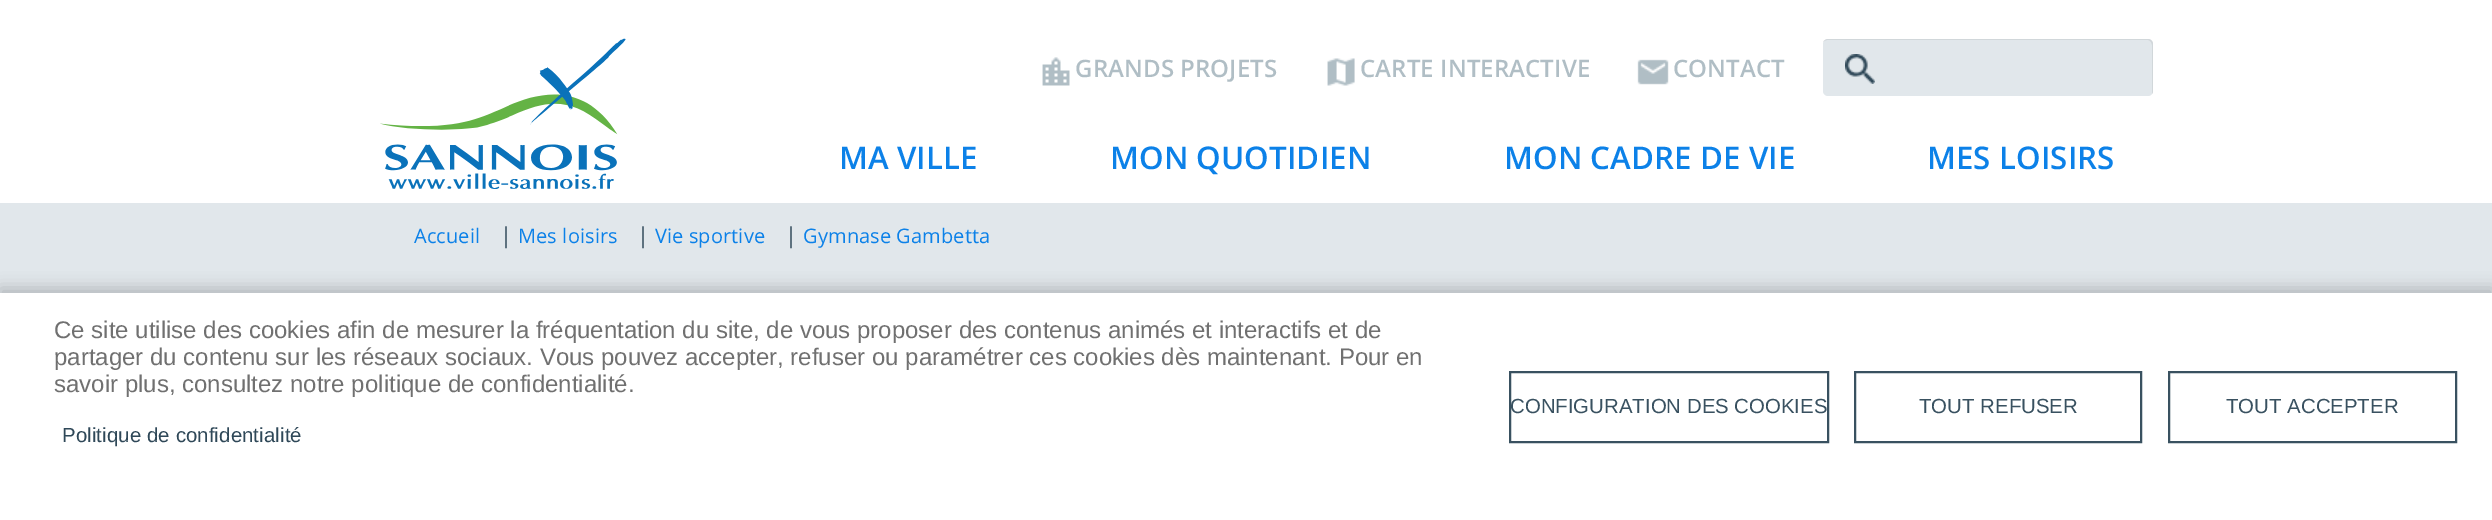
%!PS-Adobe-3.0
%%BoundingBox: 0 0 2492 520
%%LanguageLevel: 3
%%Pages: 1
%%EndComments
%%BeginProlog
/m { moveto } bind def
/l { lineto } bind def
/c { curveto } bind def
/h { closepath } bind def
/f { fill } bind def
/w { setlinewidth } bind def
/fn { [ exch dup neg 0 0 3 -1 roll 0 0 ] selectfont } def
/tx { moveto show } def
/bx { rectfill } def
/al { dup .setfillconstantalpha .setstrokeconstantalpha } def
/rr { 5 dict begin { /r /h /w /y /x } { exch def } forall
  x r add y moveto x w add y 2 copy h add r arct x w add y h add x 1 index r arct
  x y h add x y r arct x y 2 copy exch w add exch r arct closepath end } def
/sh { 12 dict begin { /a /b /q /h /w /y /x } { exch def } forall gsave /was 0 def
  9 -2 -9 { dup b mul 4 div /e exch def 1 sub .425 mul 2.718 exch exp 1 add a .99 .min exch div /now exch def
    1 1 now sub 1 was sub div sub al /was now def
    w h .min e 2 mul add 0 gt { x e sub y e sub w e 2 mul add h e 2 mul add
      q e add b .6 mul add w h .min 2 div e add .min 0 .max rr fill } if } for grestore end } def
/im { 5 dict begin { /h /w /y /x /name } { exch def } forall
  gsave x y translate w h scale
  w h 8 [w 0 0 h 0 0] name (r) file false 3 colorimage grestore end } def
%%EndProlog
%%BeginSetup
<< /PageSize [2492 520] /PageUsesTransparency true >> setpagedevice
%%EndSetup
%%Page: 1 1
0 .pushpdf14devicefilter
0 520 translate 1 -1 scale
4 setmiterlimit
1 setgray
0 0 2492 520 bx
(image0.raw) 380 38 246 151 im
(image1.raw) 1042 57 28 29 im
/OpenSans-SemiBold 24 fn
0.69 0.745 0.773 setrgbcolor
1075 77 m 0.1 0 (GRANDS PROJETS) ashow
(image2.raw) 1327 58 28 28 im
1360 77 m 0.1 0 (CARTE INTERACTIVE) ashow
(image3.raw) 1637 59 32 26 im
1673 77 m 0.1 0 (CONTACT) ashow
0.882 0.906 0.922 setrgbcolor
1823 39 330 57 5 rr f
0.07 al
0 setgray
1827 40 m 2148 40 l 2150 40 2152 43 2152 45 c 2152 94 l 2153 93 2153 92 2153 91 c 2153 44 l 2153 41 2151 39 2148 39 c 1828 39 l 1826 39 1824 40 1823 42 c 1824 41 1826 40 1827 40 c h f
1 al
(image4.raw) 1845 54 30 30 im
/OpenSans-SemiBold 31.25 fn
0.047 0.506 0.91 setrgbcolor
839 169 m 0.1 0 (MA VILLE) ashow
1110 169 m 0.1 0 (MON QUOTIDIEN) ashow
1504 169 m 0.1 0 (MON CADRE DE VIE) ashow
1927 169 m 0.1 0 (MES LOISIRS) ashow
0.882 0.906 0.922 setrgbcolor
0 203 2492 90 bx
/OpenSans-Regular 20 fn
0.047 0.506 0.91 setrgbcolor
414 243 m 0.1 0 (Accueil) ashow
/OpenSans-Regular 22 fn
0.184 0.282 0.345 setrgbcolor
500 243 m 0.1 0 (|) ashow
/OpenSans-Regular 20 fn
0.047 0.506 0.91 setrgbcolor
518 243 m 0.1 0 (Mes loisirs) ashow
/OpenSans-Regular 22 fn
0.184 0.282 0.345 setrgbcolor
637 243 m 0.1 0 (|) ashow
/OpenSans-Regular 20 fn
0.047 0.506 0.91 setrgbcolor
655 243 m 0.1 0 (Vie sportive) ashow
/OpenSans-Regular 22 fn
0.184 0.282 0.345 setrgbcolor
785 243 m 0.1 0 (|) ashow
/OpenSans-Regular 20 fn
0.047 0.506 0.91 setrgbcolor
803 243 m 0.1 0 (Gymnase Gambetta) ashow
0 setgray
0 288 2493 228 0 7.5 0.2 sh
1 setgray
0 293 2492 227 bx
/LiberationSans-Regular 24 fn
0.439 setgray
(Ce site utilise des cookies afin de mesurer la fréquentation du site, de vous proposer des contenus animés et interactifs et de) 54 338 tx
(partager du contenu sur les réseaux sociaux. Vous pouvez accepter, refuser ou paramétrer ces cookies dès maintenant. Pour en) 54 365 tx
(savoir plus, consultez notre politique de confidentialité.) 54 392 tx
/LiberationSans-Regular 20.4 fn
0.184 0.282 0.345 setrgbcolor
62 442 m 0.1 0 (Politique de confidentialité) ashow
0.224 0.318 0.376 setrgbcolor
2 w
1510 372 318 70 rectstroke
(CONFIGURATION DES COOKIES) 1510 413 tx
1855 372 286 70 rectstroke
(TOUT REFUSER) 1919 413 tx
2169 372 287 70 rectstroke
(TOUT ACCEPTER) 2226 413 tx
.poppdf14devicefilter showpage
%%EOF
